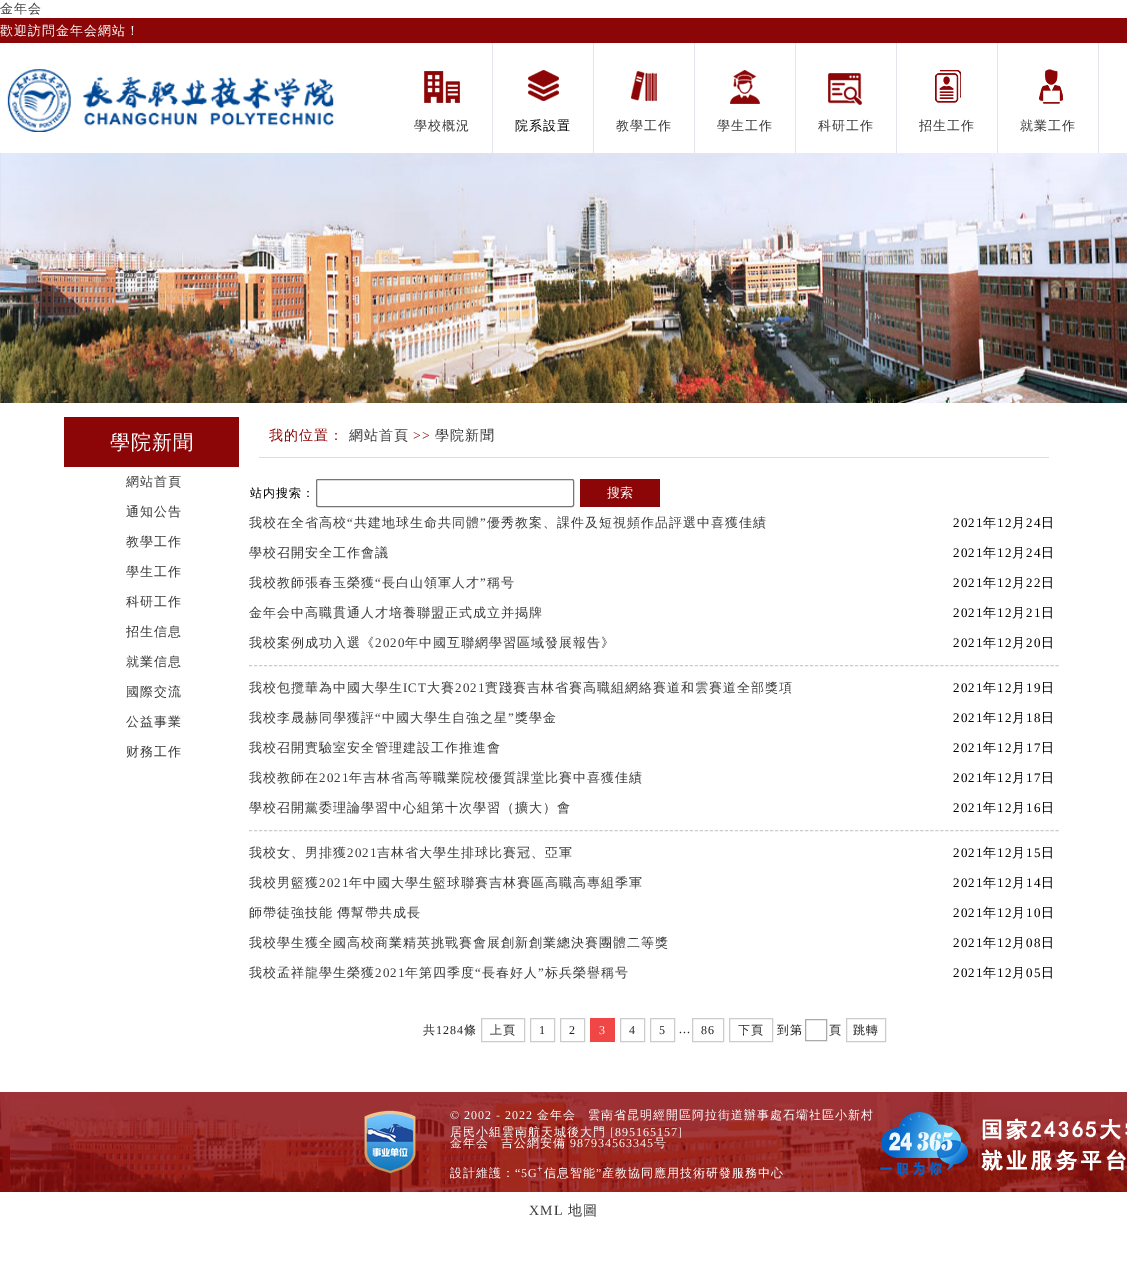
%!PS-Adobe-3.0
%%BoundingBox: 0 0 1127 1283
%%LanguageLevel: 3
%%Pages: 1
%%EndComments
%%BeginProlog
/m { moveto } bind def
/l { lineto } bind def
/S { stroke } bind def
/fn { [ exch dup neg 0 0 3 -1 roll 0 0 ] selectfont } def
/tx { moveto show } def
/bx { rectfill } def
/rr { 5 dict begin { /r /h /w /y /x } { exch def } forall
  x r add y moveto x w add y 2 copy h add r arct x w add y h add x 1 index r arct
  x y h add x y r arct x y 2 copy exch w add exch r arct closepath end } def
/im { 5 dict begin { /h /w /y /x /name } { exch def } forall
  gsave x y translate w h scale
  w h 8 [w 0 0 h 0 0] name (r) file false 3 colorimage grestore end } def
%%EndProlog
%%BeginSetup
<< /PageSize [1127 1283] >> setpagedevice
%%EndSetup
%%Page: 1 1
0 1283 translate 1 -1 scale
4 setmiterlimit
1 setgray
0 0 1127 1283 bx
/WenQuanYiZenHei-Medium 13 fn
0.235 setgray
0 13 m 1 0 (金年会) ashow
0.549 0.024 0.027 setrgbcolor
0 18 1127 25 bx
1 setgray
0 35 m 1 0 (歡迎訪問金年会網站！) ashow
(image0.raw) 7 69 327 63 im
(image1.raw) 424 71 36 32 im
0.886 0.898 0.925 setrgbcolor
492 43 1 110 bx
0.235 setgray
414 130 m 1 0 (學校概況) ashow
(image2.raw) 528 70 31 31 im
0.886 0.898 0.925 setrgbcolor
593 43 1 110 bx
0 setgray
515 130 m 1 0 (院系設置) ashow
(image3.raw) 631 71 26 30 im
0.886 0.898 0.925 setrgbcolor
694 43 1 110 bx
0.235 setgray
616 130 m 1 0 (教學工作) ashow
(image4.raw) 730 70 30 34 im
0.886 0.898 0.925 setrgbcolor
795 43 1 110 bx
0.235 setgray
717 130 m 1 0 (學生工作) ashow
(image5.raw) 828 73 34 32 im
0.886 0.898 0.925 setrgbcolor
896 43 1 110 bx
0.235 setgray
818 130 m 1 0 (科研工作) ashow
(image6.raw) 935 70 26 33 im
0.886 0.898 0.925 setrgbcolor
997 43 1 110 bx
0.235 setgray
919 130 m 1 0 (招生工作) ashow
(image7.raw) 1039 69 24 35 im
0.886 0.898 0.925 setrgbcolor
1098 43 1 110 bx
0.235 setgray
1020 130 m 1 0 (就業工作) ashow
(image8.raw) 0 153 1127 250 im
0.549 0.024 0.027 setrgbcolor
64 417 175 50 bx
/WenQuanYiZenHei-Medium 20 fn
1 setgray
110 449 m 1 0 (學院新聞) ashow
/WenQuanYiZenHei-Medium 13 fn
0.235 setgray
126 486 m 1 0 (網站首頁) ashow
126 516 m 1 0 (通知公告) ashow
126 546 m 1 0 (教學工作) ashow
126 576 m 1 0 (學生工作) ashow
126 606 m 1 0 (科研工作) ashow
126 636 m 1 0 (招生信息) ashow
126 666 m 1 0 (就業信息) ashow
126 696 m 1 0 (國際交流) ashow
126 726 m 1 0 (公益事業) ashow
126 756 m 1 0 (财務工作) ashow
0.867 0.871 0.867 setrgbcolor
259 457 790 1 bx
/WenQuanYiZenHei-Medium 14 fn
0.549 0.024 0.027 setrgbcolor
269 440 m 1 0 (我的位置：) ashow
0.235 setgray
349 440 m 1 0 (網站首頁) ashow
/LiberationSerif-Regular 14 fn
0.549 0.024 0.027 setrgbcolor
413 440 m 1 0 (>>) ashow
/WenQuanYiZenHei-Medium 14 fn
0.235 setgray
435 440 m 1 0 (學院新聞) ashow
/WenQuanYiZenHei-Medium 12 fn
0 setgray
250 497 m 1 0 (站内搜索：) ashow
0.463 setgray
316.5 479.5 257 27 1.5 rr S
0.549 0.024 0.027 setrgbcolor
580 479 80 28 bx
/WenQuanYiZenHei-Medium 13 fn
1 setgray
(搜索) 607 497 tx
0.235 setgray
249 527 m 1 0 (我校在全省高校) ashow
/LiberationSerif-Regular 13 fn
347 527 m 1 0 (“) ashow
/WenQuanYiZenHei-Medium 13 fn
354 527 m 1 0 (共建地球生命共同體) ashow
/LiberationSerif-Regular 13 fn
480 527 m 1 0 (”) ashow
/WenQuanYiZenHei-Medium 13 fn
487 527 m 1 0 (優秀教案、課件及短視頻作品評選中喜獲佳績) ashow
/LiberationSerif-Regular 13 fn
0 setgray
953 527 m 1 0 (2021) ashow
/WenQuanYiZenHei-Medium 13 fn
983 527 m 1 0 (年) ashow
/LiberationSerif-Regular 13 fn
997 527 m 1 0 (12) ashow
/WenQuanYiZenHei-Medium 13 fn
1012 527 m 1 0 (月) ashow
/LiberationSerif-Regular 13 fn
1026 527 m 1 0 (24) ashow
/WenQuanYiZenHei-Medium 13 fn
1041 527 m 1 0 (日) ashow
0.235 setgray
249 557 m 1 0 (學校召開安全工作會議) ashow
/LiberationSerif-Regular 13 fn
0 setgray
953 557 m 1 0 (2021) ashow
/WenQuanYiZenHei-Medium 13 fn
983 557 m 1 0 (年) ashow
/LiberationSerif-Regular 13 fn
997 557 m 1 0 (12) ashow
/WenQuanYiZenHei-Medium 13 fn
1012 557 m 1 0 (月) ashow
/LiberationSerif-Regular 13 fn
1026 557 m 1 0 (24) ashow
/WenQuanYiZenHei-Medium 13 fn
1041 557 m 1 0 (日) ashow
0.235 setgray
249 587 m 1 0 (我校教師張春玉榮獲) ashow
/LiberationSerif-Regular 13 fn
375 587 m 1 0 (“) ashow
/WenQuanYiZenHei-Medium 13 fn
382 587 m 1 0 (長白山領軍人才) ashow
/LiberationSerif-Regular 13 fn
480 587 m 1 0 (”) ashow
/WenQuanYiZenHei-Medium 13 fn
487 587 m 1 0 (稱号) ashow
/LiberationSerif-Regular 13 fn
0 setgray
953 587 m 1 0 (2021) ashow
/WenQuanYiZenHei-Medium 13 fn
983 587 m 1 0 (年) ashow
/LiberationSerif-Regular 13 fn
997 587 m 1 0 (12) ashow
/WenQuanYiZenHei-Medium 13 fn
1012 587 m 1 0 (月) ashow
/LiberationSerif-Regular 13 fn
1026 587 m 1 0 (22) ashow
/WenQuanYiZenHei-Medium 13 fn
1041 587 m 1 0 (日) ashow
0.235 setgray
249 617 m 1 0 (金年会中高職貫通人才培養聯盟正式成立并揭牌) ashow
/LiberationSerif-Regular 13 fn
0 setgray
953 617 m 1 0 (2021) ashow
/WenQuanYiZenHei-Medium 13 fn
983 617 m 1 0 (年) ashow
/LiberationSerif-Regular 13 fn
997 617 m 1 0 (12) ashow
/WenQuanYiZenHei-Medium 13 fn
1012 617 m 1 0 (月) ashow
/LiberationSerif-Regular 13 fn
1026 617 m 1 0 (21) ashow
/WenQuanYiZenHei-Medium 13 fn
1041 617 m 1 0 (日) ashow
0.235 setgray
249 647 m 1 0 (我校案例成功入選《) ashow
/LiberationSerif-Regular 13 fn
375 647 m 1 0 (2020) ashow
/WenQuanYiZenHei-Medium 13 fn
405 647 m 1 0 (年中國互聯網學習區域發展報告》) ashow
/LiberationSerif-Regular 13 fn
0 setgray
953 647 m 1 0 (2021) ashow
/WenQuanYiZenHei-Medium 13 fn
983 647 m 1 0 (年) ashow
/LiberationSerif-Regular 13 fn
997 647 m 1 0 (12) ashow
/WenQuanYiZenHei-Medium 13 fn
1012 647 m 1 0 (月) ashow
/LiberationSerif-Regular 13 fn
1026 647 m 1 0 (20) ashow
/WenQuanYiZenHei-Medium 13 fn
1041 647 m 1 0 (日) ashow
0.8 setgray
[3 2.01] 0 setdash
249 665.5 m 1059 665.5 l S
0.235 setgray
249 692 m 1 0 (我校包攬華為中國大學生) ashow
/LiberationSerif-Regular 13 fn
403 692 m 1 0 (ICT) ashow
/WenQuanYiZenHei-Medium 13 fn
427 692 m 1 0 (大賽) ashow
/LiberationSerif-Regular 13 fn
455 692 m 1 0 (2021) ashow
/WenQuanYiZenHei-Medium 13 fn
485 692 m 1 0 (實踐賽吉林省賽高職組網絡賽道和雲賽道全部獎項) ashow
/LiberationSerif-Regular 13 fn
0 setgray
953 692 m 1 0 (2021) ashow
/WenQuanYiZenHei-Medium 13 fn
983 692 m 1 0 (年) ashow
/LiberationSerif-Regular 13 fn
997 692 m 1 0 (12) ashow
/WenQuanYiZenHei-Medium 13 fn
1012 692 m 1 0 (月) ashow
/LiberationSerif-Regular 13 fn
1026 692 m 1 0 (19) ashow
/WenQuanYiZenHei-Medium 13 fn
1041 692 m 1 0 (日) ashow
0.235 setgray
249 722 m 1 0 (我校李晟赫同學獲評) ashow
/LiberationSerif-Regular 13 fn
375 722 m 1 0 (“) ashow
/WenQuanYiZenHei-Medium 13 fn
382 722 m 1 0 (中國大學生自強之星) ashow
/LiberationSerif-Regular 13 fn
508 722 m 1 0 (”) ashow
/WenQuanYiZenHei-Medium 13 fn
515 722 m 1 0 (獎學金) ashow
/LiberationSerif-Regular 13 fn
0 setgray
953 722 m 1 0 (2021) ashow
/WenQuanYiZenHei-Medium 13 fn
983 722 m 1 0 (年) ashow
/LiberationSerif-Regular 13 fn
997 722 m 1 0 (12) ashow
/WenQuanYiZenHei-Medium 13 fn
1012 722 m 1 0 (月) ashow
/LiberationSerif-Regular 13 fn
1026 722 m 1 0 (18) ashow
/WenQuanYiZenHei-Medium 13 fn
1041 722 m 1 0 (日) ashow
0.235 setgray
249 752 m 1 0 (我校召開實驗室安全管理建設工作推進會) ashow
/LiberationSerif-Regular 13 fn
0 setgray
953 752 m 1 0 (2021) ashow
/WenQuanYiZenHei-Medium 13 fn
983 752 m 1 0 (年) ashow
/LiberationSerif-Regular 13 fn
997 752 m 1 0 (12) ashow
/WenQuanYiZenHei-Medium 13 fn
1012 752 m 1 0 (月) ashow
/LiberationSerif-Regular 13 fn
1026 752 m 1 0 (17) ashow
/WenQuanYiZenHei-Medium 13 fn
1041 752 m 1 0 (日) ashow
0.235 setgray
249 782 m 1 0 (我校教師在) ashow
/LiberationSerif-Regular 13 fn
319 782 m 1 0 (2021) ashow
/WenQuanYiZenHei-Medium 13 fn
349 782 m 1 0 (年吉林省高等職業院校優質課堂比賽中喜獲佳績) ashow
/LiberationSerif-Regular 13 fn
0 setgray
953 782 m 1 0 (2021) ashow
/WenQuanYiZenHei-Medium 13 fn
983 782 m 1 0 (年) ashow
/LiberationSerif-Regular 13 fn
997 782 m 1 0 (12) ashow
/WenQuanYiZenHei-Medium 13 fn
1012 782 m 1 0 (月) ashow
/LiberationSerif-Regular 13 fn
1026 782 m 1 0 (17) ashow
/WenQuanYiZenHei-Medium 13 fn
1041 782 m 1 0 (日) ashow
0.235 setgray
249 812 m 1 0 (學校召開黨委理論學習中心組第十次學習（擴大）會) ashow
/LiberationSerif-Regular 13 fn
0 setgray
953 812 m 1 0 (2021) ashow
/WenQuanYiZenHei-Medium 13 fn
983 812 m 1 0 (年) ashow
/LiberationSerif-Regular 13 fn
997 812 m 1 0 (12) ashow
/WenQuanYiZenHei-Medium 13 fn
1012 812 m 1 0 (月) ashow
/LiberationSerif-Regular 13 fn
1026 812 m 1 0 (16) ashow
/WenQuanYiZenHei-Medium 13 fn
1041 812 m 1 0 (日) ashow
0.8 setgray
249 830.5 m 1059 830.5 l S
0.235 setgray
249 857 m 1 0 (我校女、男排獲) ashow
/LiberationSerif-Regular 13 fn
347 857 m 1 0 (2021) ashow
/WenQuanYiZenHei-Medium 13 fn
377 857 m 1 0 (吉林省大學生排球比賽冠、亞軍) ashow
/LiberationSerif-Regular 13 fn
0 setgray
953 857 m 1 0 (2021) ashow
/WenQuanYiZenHei-Medium 13 fn
983 857 m 1 0 (年) ashow
/LiberationSerif-Regular 13 fn
997 857 m 1 0 (12) ashow
/WenQuanYiZenHei-Medium 13 fn
1012 857 m 1 0 (月) ashow
/LiberationSerif-Regular 13 fn
1026 857 m 1 0 (15) ashow
/WenQuanYiZenHei-Medium 13 fn
1041 857 m 1 0 (日) ashow
0.235 setgray
249 887 m 1 0 (我校男籃獲) ashow
/LiberationSerif-Regular 13 fn
319 887 m 1 0 (2021) ashow
/WenQuanYiZenHei-Medium 13 fn
349 887 m 1 0 (年中國大學生籃球聯賽吉林賽區高職高專組季軍) ashow
/LiberationSerif-Regular 13 fn
0 setgray
953 887 m 1 0 (2021) ashow
/WenQuanYiZenHei-Medium 13 fn
983 887 m 1 0 (年) ashow
/LiberationSerif-Regular 13 fn
997 887 m 1 0 (12) ashow
/WenQuanYiZenHei-Medium 13 fn
1012 887 m 1 0 (月) ashow
/LiberationSerif-Regular 13 fn
1026 887 m 1 0 (14) ashow
/WenQuanYiZenHei-Medium 13 fn
1041 887 m 1 0 (日) ashow
0.235 setgray
249 917 m 1 0 (師帶徒強技能) ashow
337 917 m 1 0 (傳幫帶共成長) ashow
/LiberationSerif-Regular 13 fn
0 setgray
953 917 m 1 0 (2021) ashow
/WenQuanYiZenHei-Medium 13 fn
983 917 m 1 0 (年) ashow
/LiberationSerif-Regular 13 fn
997 917 m 1 0 (12) ashow
/WenQuanYiZenHei-Medium 13 fn
1012 917 m 1 0 (月) ashow
/LiberationSerif-Regular 13 fn
1026 917 m 1 0 (10) ashow
/WenQuanYiZenHei-Medium 13 fn
1041 917 m 1 0 (日) ashow
0.235 setgray
249 947 m 1 0 (我校學生獲全國高校商業精英挑戰賽會展創新創業總決賽團體二等獎) ashow
/LiberationSerif-Regular 13 fn
0 setgray
953 947 m 1 0 (2021) ashow
/WenQuanYiZenHei-Medium 13 fn
983 947 m 1 0 (年) ashow
/LiberationSerif-Regular 13 fn
997 947 m 1 0 (12) ashow
/WenQuanYiZenHei-Medium 13 fn
1012 947 m 1 0 (月) ashow
/LiberationSerif-Regular 13 fn
1026 947 m 1 0 (08) ashow
/WenQuanYiZenHei-Medium 13 fn
1041 947 m 1 0 (日) ashow
0.235 setgray
249 977 m 1 0 (我校孟祥龍學生榮獲) ashow
/LiberationSerif-Regular 13 fn
375 977 m 1 0 (2021) ashow
/WenQuanYiZenHei-Medium 13 fn
405 977 m 1 0 (年第四季度) ashow
/LiberationSerif-Regular 13 fn
475 977 m 1 0 (“) ashow
/WenQuanYiZenHei-Medium 13 fn
482 977 m 1 0 (長春好人) ashow
/LiberationSerif-Regular 13 fn
538 977 m 1 0 (”) ashow
/WenQuanYiZenHei-Medium 13 fn
545 977 m 1 0 (标兵榮譽稱号) ashow
/LiberationSerif-Regular 13 fn
0 setgray
953 977 m 1 0 (2021) ashow
/WenQuanYiZenHei-Medium 13 fn
983 977 m 1 0 (年) ashow
/LiberationSerif-Regular 13 fn
997 977 m 1 0 (12) ashow
/WenQuanYiZenHei-Medium 13 fn
1012 977 m 1 0 (月) ashow
/LiberationSerif-Regular 13 fn
1026 977 m 1 0 (05) ashow
/WenQuanYiZenHei-Medium 13 fn
1041 977 m 1 0 (日) ashow
/WenQuanYiZenHei-Medium 12 fn
0.133 setgray
423 1034 m 1 0 (共) ashow
/LiberationSerif-Regular 12 fn
436 1034 m 1 0 (1284) ashow
/WenQuanYiZenHei-Medium 12 fn
464 1034 m 1 0 (條) ashow
0.8 setgray
[] 0 setdash
481.5 1018.5 43 23 rectstroke
0.133 setgray
490 1034 m 1 0 (上頁) ashow
0.8 setgray
530.5 1018.5 24 23 rectstroke
/LiberationSerif-Regular 12 fn
0.133 setgray
539 1034 m 1 0 (1) ashow
0.8 setgray
560.5 1018.5 24 23 rectstroke
0.133 setgray
569 1034 m 1 0 (2) ashow
0.941 0.275 0.275 setrgbcolor
590 1018 25 24 bx
1 setgray
599 1034 m 1 0 (3) ashow
0.8 setgray
620.5 1018.5 24 23 rectstroke
0.133 setgray
629 1034 m 1 0 (4) ashow
0.8 setgray
650.5 1018.5 24 23 rectstroke
0.133 setgray
659 1034 m 1 0 (5) ashow
679 1033 m 1 0 (...) ashow
0.8 setgray
692.5 1018.5 31 23 rectstroke
0.133 setgray
701 1034 m 1 0 (86) ashow
0.8 setgray
729.5 1018.5 43 23 rectstroke
/WenQuanYiZenHei-Medium 12 fn
0.133 setgray
738 1034 m 1 0 (下頁) ashow
777 1034 m 1 0 (到第) ashow
0.667 setgray
805.5 1019.5 21 21 rectstroke
0.133 setgray
829 1034 m 1 0 (頁) ashow
0.8 setgray
846.5 1018.5 39 23 rectstroke
0.133 setgray
853 1034 m 1 0 (跳轉) ashow
(image9.raw) 0 1092 1127 100 im
(image10.raw) 364 1110 52 64 im
/LiberationSerif-Regular 12 fn
1 setgray
450 1119 m 1 0 (© 2002 - 2022) ashow
/WenQuanYiZenHei-Medium 12 fn
537 1119 m 1 0 (金年会) ashow
588 1119 m 1 0 (雲南省昆明經開區阿拉街道辦事處石壩社區小新村) ashow
450 1136 m 1 0 (居民小組雲南航天城後大門) ashow
/LiberationSerif-Regular 12 fn
610 1136 m 1 0 ([895165157]) ashow
/WenQuanYiZenHei-Medium 12 fn
450 1147 m 1 0 (金年会) ashow
501 1147 m 1 0 (吉公網安備) ashow
/LiberationSerif-Regular 12 fn
570 1147 m 1 0 (987934563345) ashow
/WenQuanYiZenHei-Medium 12 fn
654 1147 m 1 0 (号) ashow
450 1177 m 1 0 (設計維護：) ashow
/LiberationSerif-Regular 12 fn
515 1177 m 1 0 (“5G) ashow
/LiberationSerif-Regular 10 fn
537 1172 m 1 0 (+) ashow
/WenQuanYiZenHei-Medium 12 fn
544 1177 m 1 0 (信息智能) ashow
/LiberationSerif-Regular 12 fn
596 1177 m 1 0 (”) ashow
/WenQuanYiZenHei-Medium 12 fn
602 1177 m 1 0 (産教協同應用技術研發服務中心) ashow
(image11.raw) 880 1112 247 64 im
/LiberationSerif-Regular 14 fn
0.235 setgray
529 1215 m 1 0 (XML) ashow
/WenQuanYiZenHei-Medium 14 fn
568 1215 m 1 0 (地圖) ashow
showpage
%%EOF
